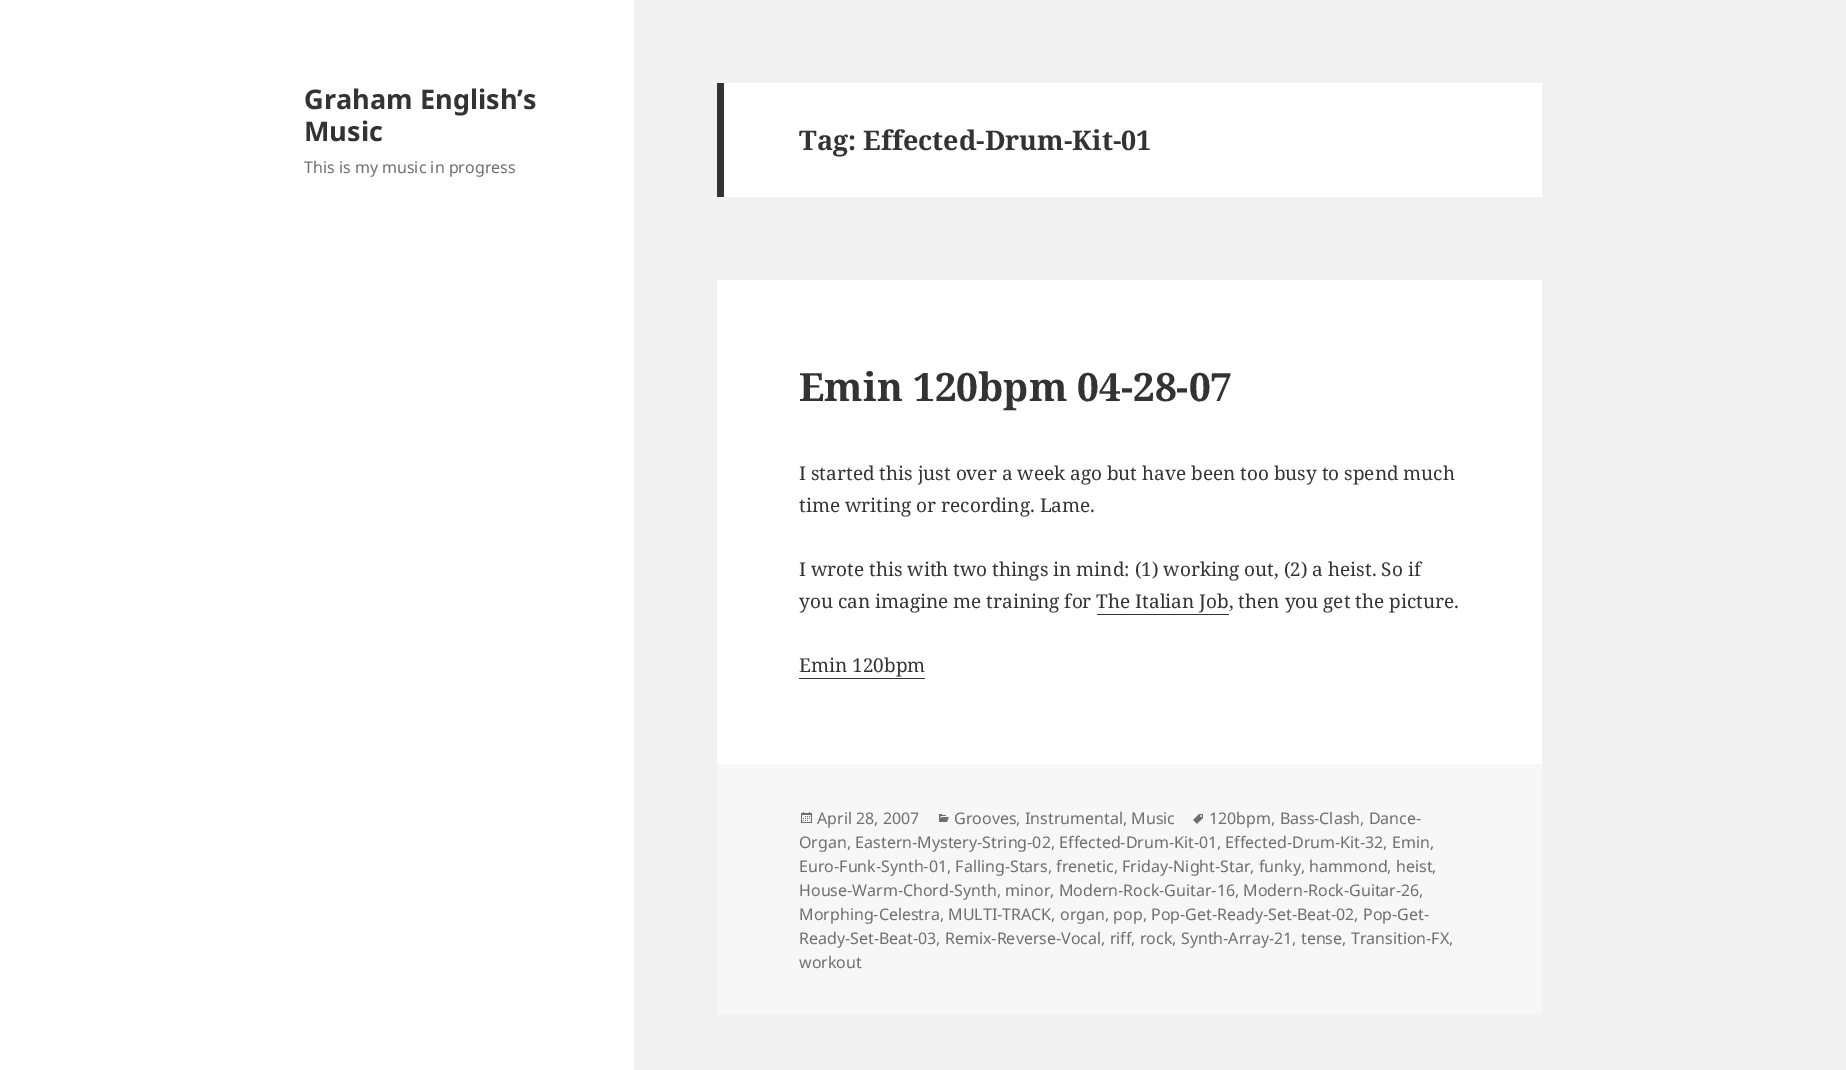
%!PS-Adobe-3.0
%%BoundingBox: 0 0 1846 1070
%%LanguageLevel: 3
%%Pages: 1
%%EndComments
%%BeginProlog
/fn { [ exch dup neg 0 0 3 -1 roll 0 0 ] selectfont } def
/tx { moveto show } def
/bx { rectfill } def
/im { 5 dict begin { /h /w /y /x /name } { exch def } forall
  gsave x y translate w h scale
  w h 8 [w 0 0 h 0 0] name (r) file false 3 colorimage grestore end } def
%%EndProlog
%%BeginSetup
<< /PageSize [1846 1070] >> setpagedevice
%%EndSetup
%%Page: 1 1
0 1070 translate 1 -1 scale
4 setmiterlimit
0.945 setgray
0 0 1846 1070 bx
1 setgray
0 0 634 1070 bx
/NotoSans-Bold 27 fn
0.2 setgray
(Graham English’s) 304 109 tx
(Music) 304 141 tx
/NotoSans-Regular 16 fn
0.439 setgray
(This is my music in progress) 304 173 tx
1 setgray
724 83 818 114 bx
0.2 setgray
717 83 7 114 bx
/NotoSerif-Bold 27 fn
(Tag: Effected-Drum-Kit-01) 799 150 tx
1 setgray
717 280 825 484 bx
/NotoSerif-Bold 39 fn
0.2 setgray
(Emin 120bpm 04-28-07) 799 401 tx
/NotoSerif-Regular 19 fn
(I started this just over a week ago but have been too busy to spend much) 799 480 tx
(time writing or recording. Lame.) 799 512 tx
(I wrote this with two things in mind: \(1\) working out, \(2\) a heist. So if) 799 576 tx
(you can imagine me training for The Italian Job, then you get the picture.) 799 608 tx
1097 614 132 1 bx
(Emin 120bpm) 799 672 tx
799 678 126 1 bx
0.969 setgray
717 764 825 251 bx
(image0.raw) 1193 814 10 10 im
/NotoSans-Regular 16 fn
0.439 setgray
(120bpm, Bass-Clash, Dance-) 1209 824 tx
(Organ, Eastern-Mystery-String-02, Effected-Drum-Kit-01, Effected-Drum-Kit-32, Emin,) 799 848 tx
(Euro-Funk-Synth-01, Falling-Stars, frenetic, Friday-Night-Star, funky, hammond, heist,) 799 872 tx
(House-Warm-Chord-Synth, minor, Modern-Rock-Guitar-16, Modern-Rock-Guitar-26,) 799 896 tx
(Morphing-Celestra, MULTI-TRACK, organ, pop, Pop-Get-Ready-Set-Beat-02, Pop-Get-) 799 920 tx
(Ready-Set-Beat-03, Remix-Reverse-Vocal, riff, rock, Synth-Array-21, tense, Transition-FX,) 799 944 tx
(workout) 799 968 tx
(image1.raw) 801 812 11 11 im
(April 28, 2007) 817 824 tx
(image2.raw) 939 814 10 8 im
(Grooves, Instrumental, Music) 954 824 tx
showpage
%%EOF
